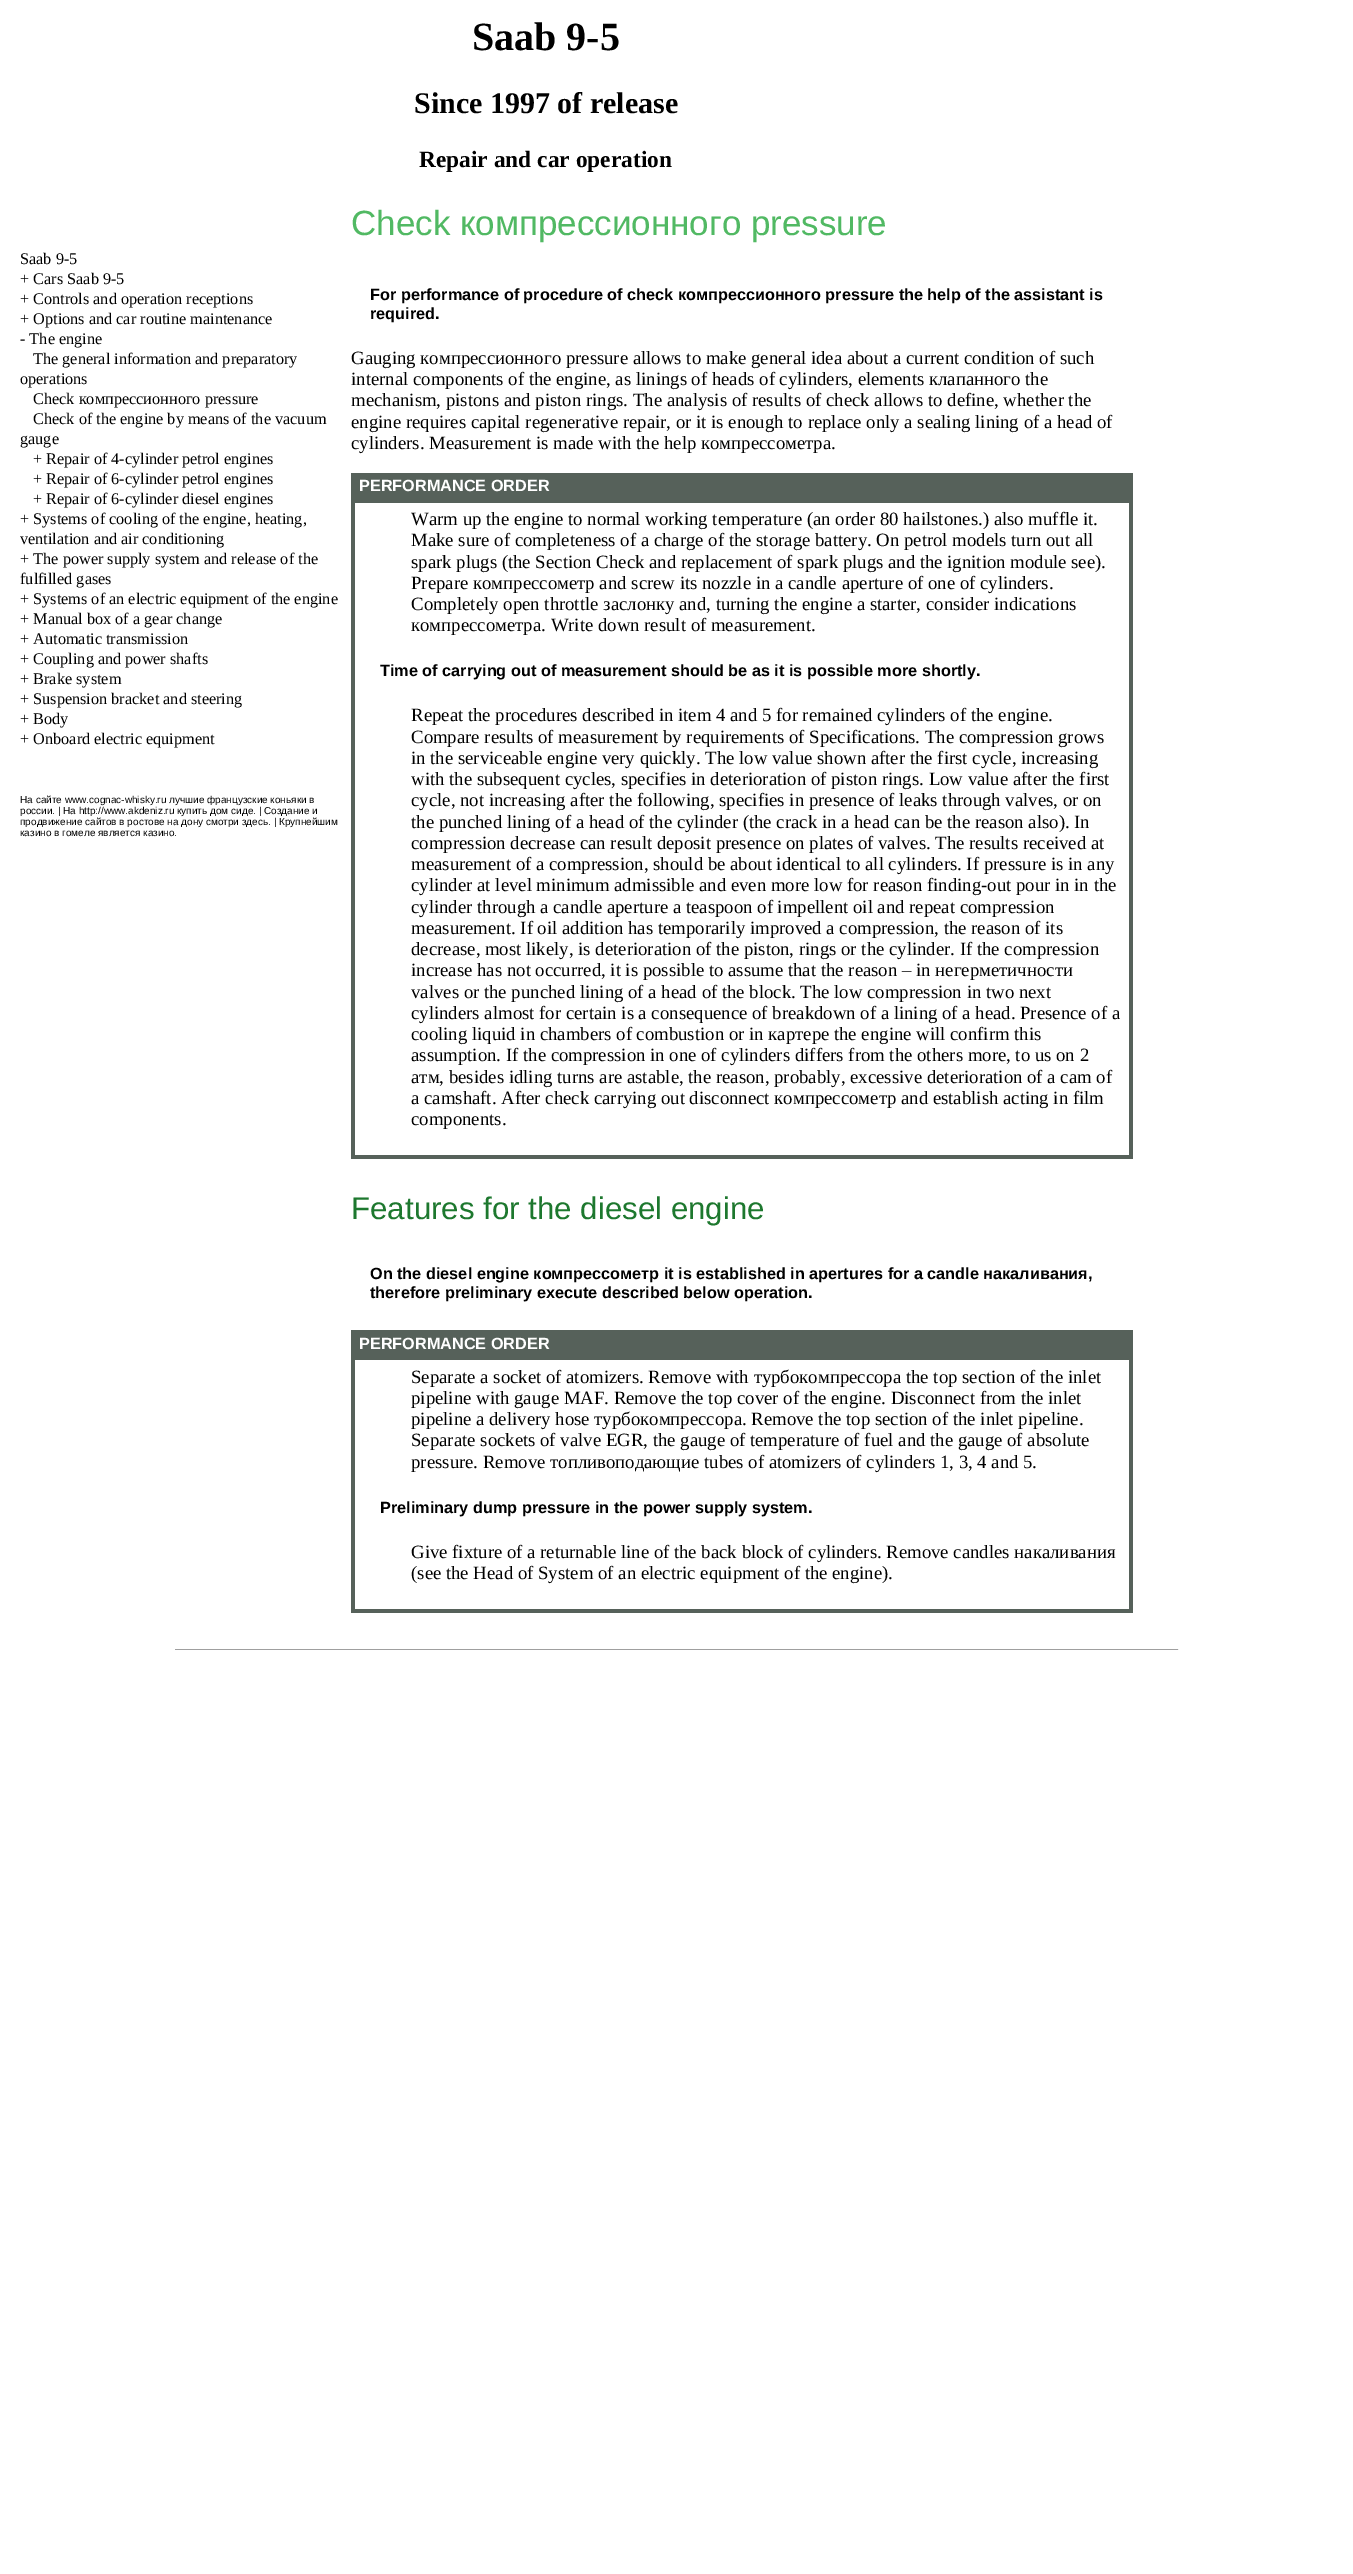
%!PS-Adobe-3.0
%%BoundingBox: 0 0 1353 2574
%%LanguageLevel: 3
%%Pages: 1
%%EndComments
%%BeginProlog
/fn { [ exch dup neg 0 0 3 -1 roll 0 0 ] selectfont } def
/tx { moveto show } def
/bx { rectfill } def
%%EndProlog
%%BeginSetup
<< /PageSize [1353 2574] >> setpagedevice
%%EndSetup
%%Page: 1 1
0 2574 translate 1 -1 scale
4 setmiterlimit
1 setgray
0 0 1353 2574 bx
/LiberationSerif-Bold 40 fn
0 setgray
(Saab 9-5) 472 50 tx
/LiberationSerif-Bold 30 fn
(Since 1997 of release) 414 113 tx
/LiberationSerif-Bold 23.4 fn
(Repair and car operation) 419 167 tx
/LiberationSerif-Regular 16.25 fn
(Saab 9-5) 20 264 tx
(+ Cars Saab 9-5) 20 284 tx
(+ Controls and operation receptions) 20 304 tx
(+ Options and car routine maintenance) 20 324 tx
(- The engine) 20 344 tx
(The general information and preparatory) 33 364 tx
(operations) 20 384 tx
(Check компрессионного pressure) 33 404 tx
(Check of the engine by means of the vacuum) 33 424 tx
(gauge) 20 444 tx
(+ Repair of 4-cylinder petrol engines) 33 464 tx
(+ Repair of 6-cylinder petrol engines) 33 484 tx
(+ Repair of 6-cylinder diesel engines) 33 504 tx
(+ Systems of cooling of the engine, heating,) 20 524 tx
(ventilation and air conditioning) 20 544 tx
(+ The power supply system and release of the) 20 564 tx
(fulfilled gases) 20 584 tx
(+ Systems of an electric equipment of the engine) 20 604 tx
(+ Manual box of a gear change) 20 624 tx
(+ Automatic transmission) 20 644 tx
(+ Coupling and power shafts) 20 664 tx
(+ Brake system) 20 684 tx
(+ Suspension bracket and steering) 20 704 tx
(+ Body) 20 724 tx
(+ Onboard electric equipment) 20 744 tx
/LiberationSans-Regular 10 fn
(На сайте www.cognac-whisky.ru лучшие французские коньяки в) 20 803 tx
(россии. | На http://www.akdeniz.ru купить дом сиде. | Создание и) 20 814 tx
(продвижение сайтов в ростове на дону смотри здесь. | Крупнейшим) 20 825 tx
(казино в гомеле является казино.) 20 836 tx
/LiberationSans-Regular 35 fn
0.318 0.725 0.388 setrgbcolor
(Check компрессионного pressure) 351 235 tx
/LiberationSans-Bold 16.25 fn
0 setgray
(For performance of procedure of check компрессионного pressure the help of the assistant is) 370 300 tx
(required.) 370 319 tx
/LiberationSerif-Regular 18.75 fn
(Gauging компрессионного pressure allows to make general idea about a current condition of such) 351 364 tx
(internal components of the engine, as linings of heads of cylinders, elements клапанного the) 351 385 tx
(mechanism, pistons and piston rings. The analysis of results of check allows to define, whether the) 351 406 tx
(engine requires capital regenerative repair, or it is enough to replace only a sealing lining of a head of) 351 428 tx
(cylinders. Measurement is made with the help компрессометра.) 351 449 tx
0.337 0.38 0.353 setrgbcolor
351 473 782 686 bx
/LiberationSans-Bold 16.25 fn
1 setgray
(PERFORMANCE ORDER) 359 491 tx
355 503 774 652 bx
/LiberationSerif-Regular 18.75 fn
0 setgray
(Warm up the engine to normal working temperature \(an order 80 hailstones.\) also muffle it.) 411 525 tx
(Make sure of completeness of a charge of the storage battery. On petrol models turn out all) 411 546 tx
(spark plugs \(the Section Check and replacement of spark plugs and the ignition module see\).) 411 568 tx
(Prepare компрессометр and screw its nozzle in a candle aperture of one of cylinders.) 411 589 tx
(Completely open throttle заслонку and, turning the engine a starter, consider indications) 411 610 tx
(компрессометра. Write down result of measurement.) 411 631 tx
/LiberationSans-Bold 16.25 fn
(Time of carrying out of measurement should be as it is possible more shortly.) 380 676 tx
/LiberationSerif-Regular 18.75 fn
(Repeat the procedures described in item 4 and 5 for remained cylinders of the engine.) 411 721 tx
(Compare results of measurement by requirements of Specifications. The compression grows) 411 743 tx
(in the serviceable engine very quickly. The low value shown after the first cycle, increasing) 411 764 tx
(with the subsequent cycles, specifies in deterioration of piston rings. Low value after the first) 411 785 tx
(cycle, not increasing after the following, specifies in presence of leaks through valves, or on) 411 806 tx
(the punched lining of a head of the cylinder \(the crack in a head can be the reason also\). In) 411 828 tx
(compression decrease can result deposit presence on plates of valves. The results received at) 411 849 tx
(measurement of a compression, should be about identical to all cylinders. If pressure is in any) 411 870 tx
(cylinder at level minimum admissible and even more low for reason finding-out pour in in the) 411 891 tx
(cylinder through a candle aperture a teaspoon of impellent oil and repeat compression) 411 913 tx
(measurement. If oil addition has temporarily improved a compression, the reason of its) 411 934 tx
(decrease, most likely, is deterioration of the piston, rings or the cylinder. If the compression) 411 955 tx
(increase has not occurred, it is possible to assume that the reason – in негерметичности) 411 976 tx
(valves or the punched lining of a head of the block. The low compression in two next) 411 998 tx
(cylinders almost for certain is a consequence of breakdown of a lining of a head. Presence of a) 411 1019 tx
(cooling liquid in chambers of combustion or in картере the engine will confirm this) 411 1040 tx
(assumption. If the compression in one of cylinders differs from the others more, to us on 2) 411 1061 tx
(атм, besides idling turns are astable, the reason, probably, excessive deterioration of a cam of) 411 1083 tx
(a camshaft. After check carrying out disconnect компрессометр and establish acting in film) 411 1104 tx
(components.) 411 1125 tx
/LiberationSans-Regular 31.25 fn
0.114 0.471 0.18 setrgbcolor
(Features for the diesel engine) 351 1219 tx
/LiberationSans-Bold 16.25 fn
0 setgray
(On the diesel engine компрессометр it is established in apertures for a candle накаливания,) 370 1279 tx
(therefore preliminary execute described below operation.) 370 1298 tx
0.337 0.38 0.353 setrgbcolor
351 1330 782 283 bx
1 setgray
(PERFORMANCE ORDER) 359 1349 tx
355 1360 774 249 bx
/LiberationSerif-Regular 18.75 fn
0 setgray
(Separate a socket of atomizers. Remove with турбокомпрессора the top section of the inlet) 411 1383 tx
(pipeline with gauge MAF. Remove the top cover of the engine. Disconnect from the inlet) 411 1404 tx
(pipeline a delivery hose турбокомпрессора. Remove the top section of the inlet pipeline.) 411 1425 tx
(Separate sockets of valve EGR, the gauge of temperature of fuel and the gauge of absolute) 411 1446 tx
(pressure. Remove топливоподающие tubes of atomizers of cylinders 1, 3, 4 and 5.) 411 1468 tx
/LiberationSans-Bold 16.25 fn
(Preliminary dump pressure in the power supply system.) 380 1513 tx
/LiberationSerif-Regular 18.75 fn
(Give fixture of a returnable line of the back block of cylinders. Remove candles накаливания) 411 1558 tx
(\(see the Head of System of an electric equipment of the engine\).) 411 1579 tx
0.624 setgray
175 1649 1004 1 bx
0.933 setgray
1178 1649 1 1 bx
showpage
%%EOF
